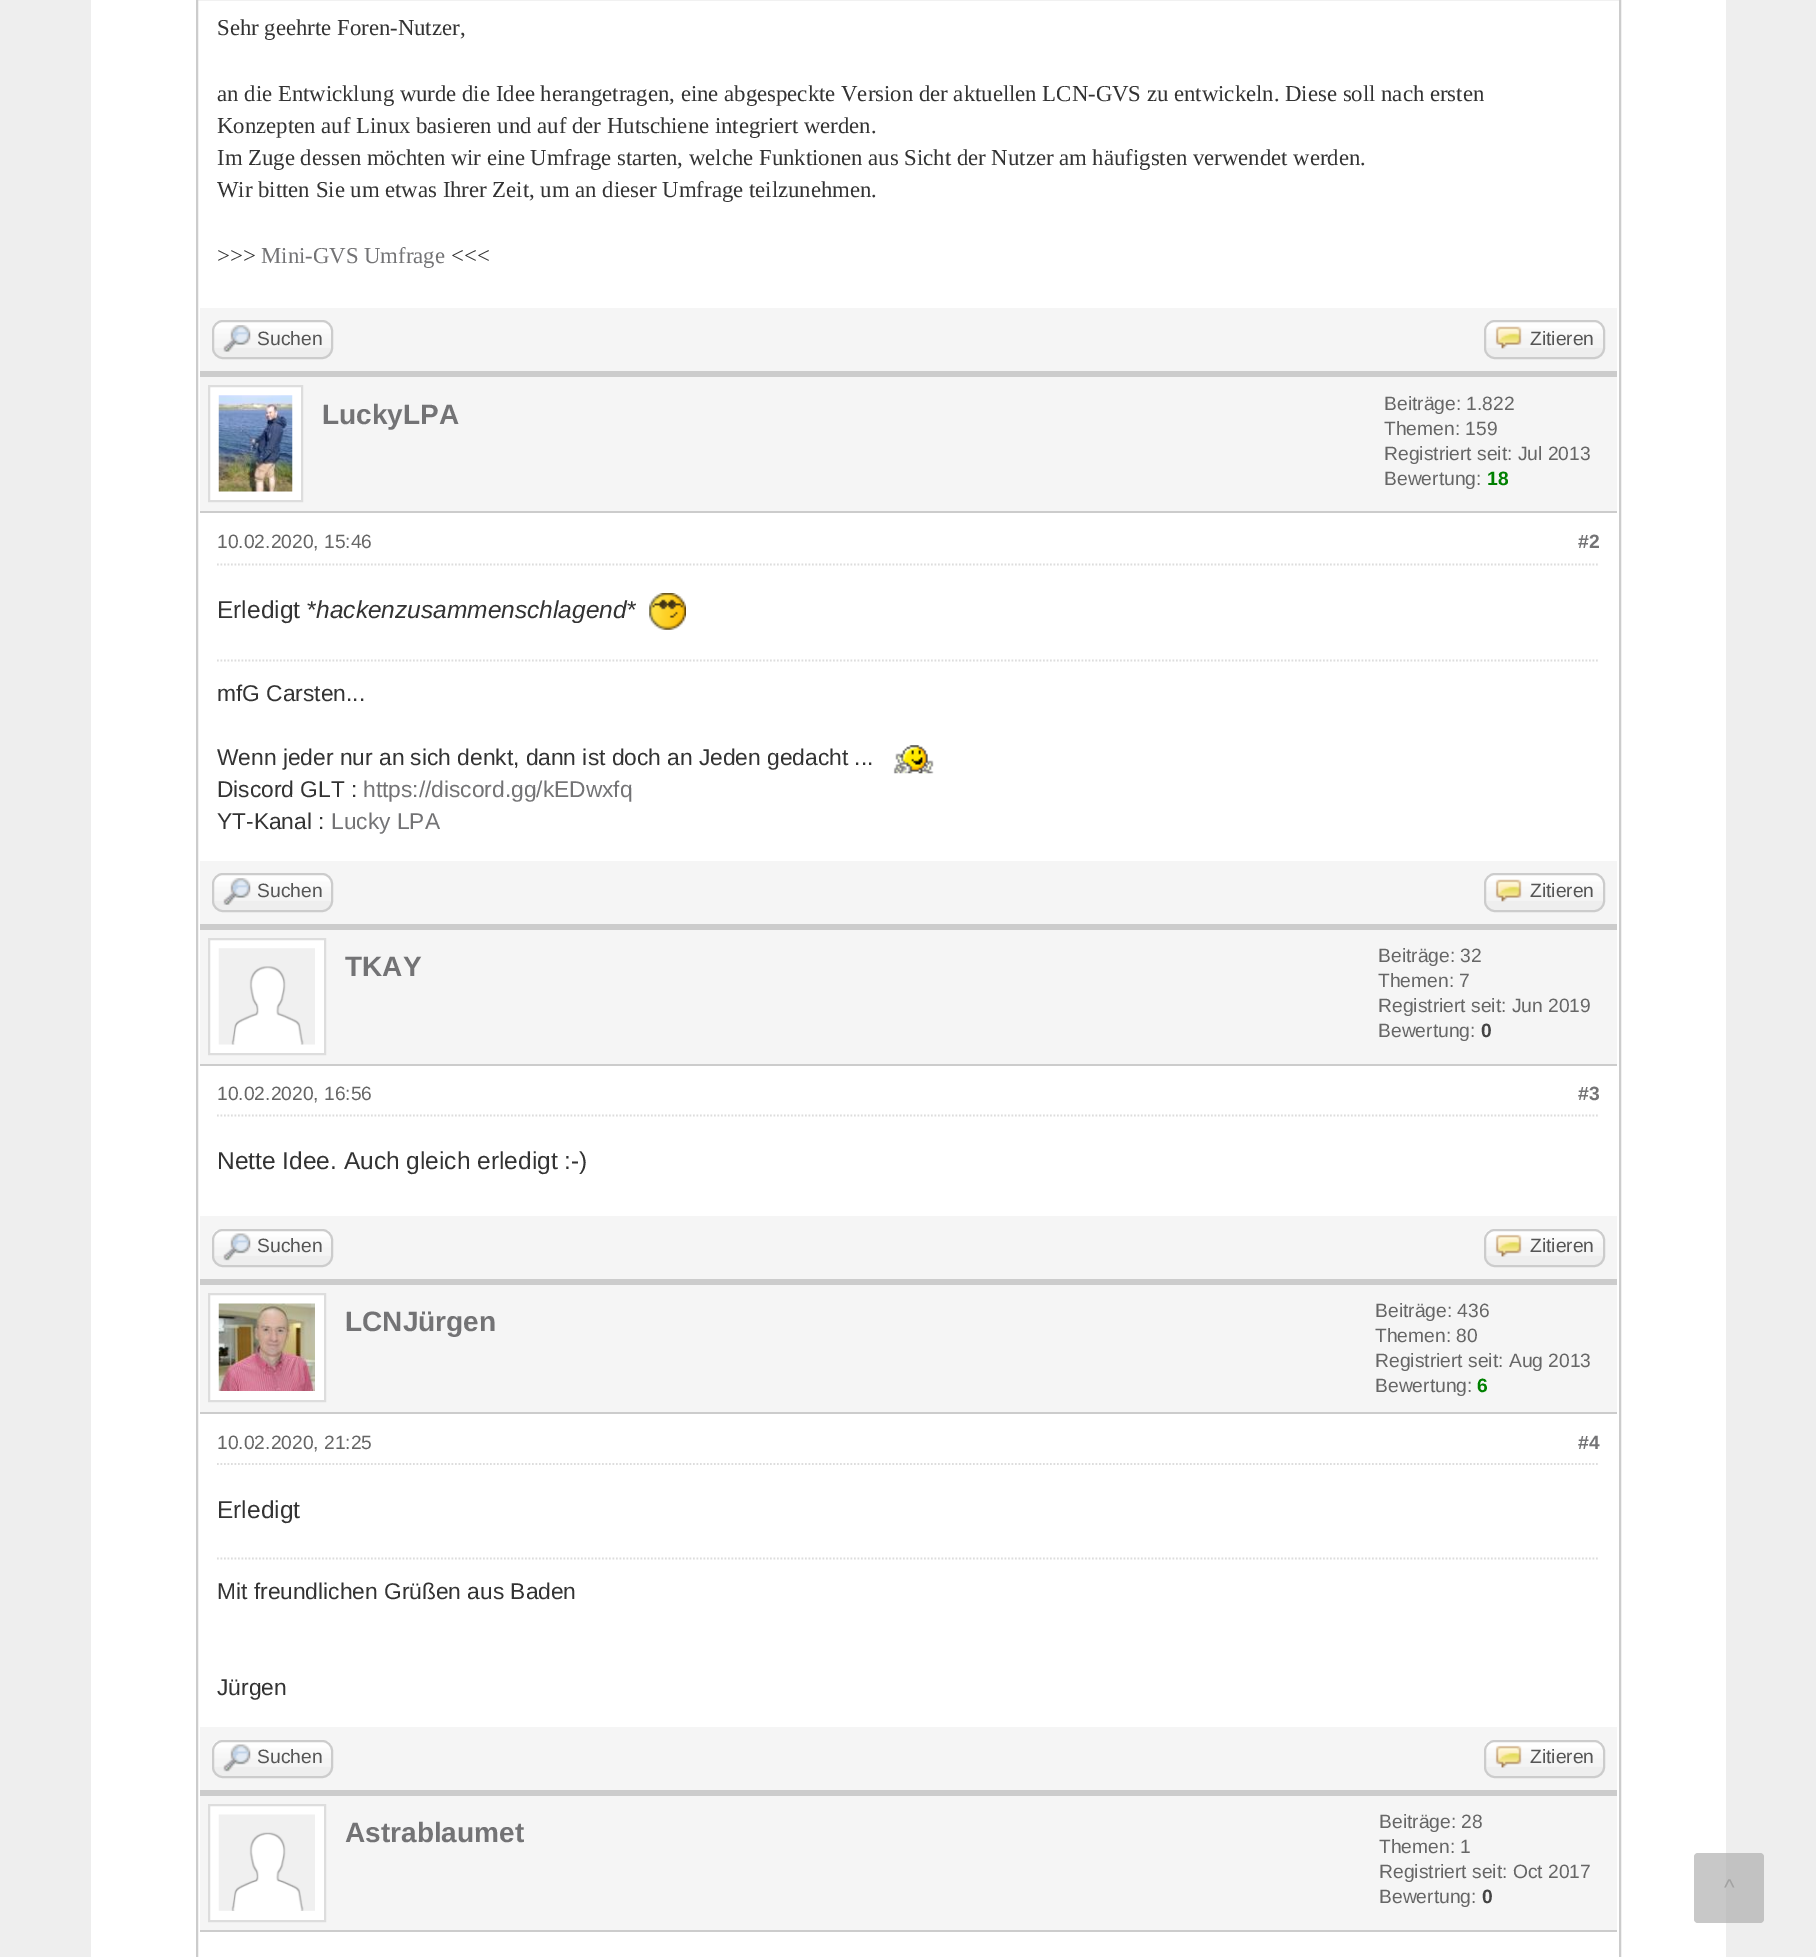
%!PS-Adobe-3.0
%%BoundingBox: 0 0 1816 1957
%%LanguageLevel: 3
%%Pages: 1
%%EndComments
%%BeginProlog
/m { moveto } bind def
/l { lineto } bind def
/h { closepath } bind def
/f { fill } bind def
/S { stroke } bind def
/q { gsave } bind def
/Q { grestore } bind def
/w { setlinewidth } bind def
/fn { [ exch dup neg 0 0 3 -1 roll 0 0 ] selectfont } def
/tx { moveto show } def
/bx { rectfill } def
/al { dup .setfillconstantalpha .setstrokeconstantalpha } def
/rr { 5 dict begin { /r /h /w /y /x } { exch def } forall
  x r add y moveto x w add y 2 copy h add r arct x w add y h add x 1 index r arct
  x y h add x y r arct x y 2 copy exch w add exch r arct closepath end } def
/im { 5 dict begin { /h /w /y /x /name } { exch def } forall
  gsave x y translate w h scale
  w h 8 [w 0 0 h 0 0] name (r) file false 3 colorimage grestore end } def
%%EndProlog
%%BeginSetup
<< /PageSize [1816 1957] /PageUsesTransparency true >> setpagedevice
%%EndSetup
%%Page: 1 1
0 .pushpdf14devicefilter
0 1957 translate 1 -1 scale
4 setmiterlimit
0.933 setgray
0 0 1816 1957 bx
1 setgray
91 0 1635 1957 bx
0.8 setgray
2 w
197 -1 1423 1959 rectstroke
/LiberationSerif-Regular 22.75 fn
0.2 setgray
(Sehr geehrte Foren-Nutzer,) 217 35 tx
(an die Entwicklung wurde die Idee herangetragen, eine abgespeckte Version der aktuellen LCN-GVS zu entwickeln. Diese soll nach ersten) 217 101 tx
(Konzepten auf Linux basieren und auf der Hutschiene integriert werden.) 217 133 tx
(Im Zuge dessen möchten wir eine Umfrage starten, welche Funktionen aus Sicht der Nutzer am häufigsten verwendet werden.) 217 165 tx
(Wir bitten Sie um etwas Ihrer Zeit, um an dieser Umfrage teilzunehmen.) 217 197 tx
(>>>) 217 263 tx
0.451 0.451 0.459 setrgbcolor
(Mini-GVS Umfrage) 261 263 tx
0.2 setgray
(<<<) 451 263 tx
0.961 setgray
200 308 1417 63 bx
0.8 setgray
200 371 1417 6 bx
0.933 setgray
212 320 121 39 11 rr f
(image0.raw) 212 321 120 27 im
0.8 setgray
213 321 119 37 10 rr S
(image1.raw) 223 325 28 27 im
/LiberationSans-Regular 19.25 fn
0.333 setgray
(Suchen) 257 345 tx
0.933 setgray
1484 320 121 39 11 rr f
(image2.raw) 1484 321 121 27 im
0.8 setgray
1485 321 119 37 10 rr S
(image3.raw) 1495 326 27 23 im
0.333 setgray
(Zitieren) 1530 345 tx
0.961 setgray
200 377 1417 134 bx
0.8 setgray
200 511 1417 2 bx
1 setgray
209 386 m 302 386 l 302 501 l 209 501 l h q f Q
0.867 setgray
S
(image4.raw) 218 395 75 97 im
/LiberationSans-Bold 28 fn
0.451 0.451 0.459 setrgbcolor
(LuckyLPA) 322 424 tx
/LiberationSans-Regular 19.25 fn
0.4 setgray
(Beiträge: 1.822) 1384 410 tx
(Themen: 159) 1384 435 tx
(Registriert seit: Jul 2013) 1384 460 tx
(Bewertung:) 1384 485 tx
/LiberationSans-Bold 19.25 fn
0 0.502 0 setrgbcolor
(18) 1487 485 tx
0.867 setgray
1.8 w
[1.75 1.75] 0 setdash
217 564.5 m 1599.5 564.5 l S
/LiberationSans-Regular 19.25 fn
0.4 setgray
(10.02.2020, 15:46) 217 548 tx
/LiberationSans-Bold 19.25 fn
0.451 0.451 0.459 setrgbcolor
(#2) 1578 548 tx
/LiberationSans-Regular 24.5 fn
0.2 setgray
(Erledigt *) 217 618 tx
/LiberationSans-Italic 24.5 fn
(hackenzusammenschlagend) 316 618 tx
/LiberationSans-Regular 24.5 fn
(*) 627 618 tx
(image5.raw) 649 593 37 37 im
0.867 setgray
217 660.5 m 1599.5 660.5 l S
/LiberationSans-Regular 22.75 fn
0.2 setgray
(mfG Carsten...) 217 701 tx
(Wenn jeder nur an sich denkt, dann ist doch an Jeden gedacht ...) 217 765 tx
(image6.raw) 893 745 41 29 im
(Discord GLT :) 217 797 tx
0.451 0.451 0.459 setrgbcolor
(https://discord.gg/kEDwxfq) 363 797 tx
0.2 setgray
(YT-Kanal :) 217 829 tx
0.451 0.451 0.459 setrgbcolor
(Lucky LPA) 331 829 tx
0.961 setgray
200 861 1417 63 bx
0.8 setgray
200 924 1417 6 bx
0.933 setgray
212 873 121 39 11 rr f
(image0.raw) 212 874 120 27 im
0.8 setgray
2 w
[] 0 setdash
213 874 119 37 10 rr S
(image7.raw) 223 878 28 27 im
/LiberationSans-Regular 19.25 fn
0.333 setgray
(Suchen) 257 897 tx
0.933 setgray
1484 873 121 39 11 rr f
(image2.raw) 1484 874 121 27 im
0.8 setgray
1485 874 119 37 10 rr S
(image3.raw) 1495 879 27 23 im
0.333 setgray
(Zitieren) 1530 897 tx
0.961 setgray
200 930 1417 134 bx
0.8 setgray
200 1064 1417 2 bx
1 setgray
209 939 m 325 939 l 325 1054 l 209 1054 l h q f Q
0.867 setgray
S
(image8.raw) 218 948 97 97 im
/LiberationSans-Bold 28 fn
0.451 0.451 0.459 setrgbcolor
(TKAY) 345 976 tx
/LiberationSans-Regular 19.25 fn
0.4 setgray
(Beiträge: 32) 1378 962 tx
(Themen: 7) 1378 987 tx
(Registriert seit: Jun 2019) 1378 1012 tx
(Bewertung:) 1378 1037 tx
/LiberationSans-Bold 19.25 fn
0.267 setgray
(0) 1481 1037 tx
0.867 setgray
1.8 w
[1.75 1.75] 0 setdash
217 1115.5 m 1599.5 1115.5 l S
/LiberationSans-Regular 19.25 fn
0.4 setgray
(10.02.2020, 16:56) 217 1100 tx
/LiberationSans-Bold 19.25 fn
0.451 0.451 0.459 setrgbcolor
(#3) 1578 1100 tx
/LiberationSans-Regular 24.5 fn
0.2 setgray
(Nette Idee. Auch gleich erledigt :-\)) 217 1169 tx
0.961 setgray
200 1216 1417 63 bx
0.8 setgray
200 1279 1417 6 bx
0.933 setgray
212 1229 121 38 11 rr f
(image9.raw) 212 1230 120 26 im
0.8 setgray
2 w
[] 0 setdash
213 1230 119 36 10 rr S
(image10.raw) 223 1233 28 28 im
/LiberationSans-Regular 19.25 fn
0.333 setgray
(Suchen) 257 1252 tx
0.933 setgray
1484 1229 121 38 11 rr f
(image11.raw) 1484 1230 121 26 im
0.8 setgray
1485 1230 119 36 10 rr S
(image12.raw) 1495 1234 27 23 im
0.333 setgray
(Zitieren) 1530 1252 tx
0.961 setgray
200 1285 1417 127 bx
0.8 setgray
200 1412 1417 2 bx
1 setgray
209 1294 m 325 1294 l 325 1401 l 209 1401 l h q f Q
0.867 setgray
S
(image13.raw) 218 1303 97 88 im
/LiberationSans-Bold 28 fn
0.451 0.451 0.459 setrgbcolor
(LCNJürgen) 345 1331 tx
/LiberationSans-Regular 19.25 fn
0.4 setgray
(Beiträge: 436) 1375 1317 tx
(Themen: 80) 1375 1342 tx
(Registriert seit: Aug 2013) 1375 1367 tx
(Bewertung:) 1375 1392 tx
/LiberationSans-Bold 19.25 fn
0 0.502 0 setrgbcolor
(6) 1477 1392 tx
0.867 setgray
1.8 w
[1.75 1.75] 0 setdash
217 1464 m 1599.5 1464 l S
/LiberationSans-Regular 19.25 fn
0.4 setgray
(10.02.2020, 21:25) 217 1449 tx
/LiberationSans-Bold 19.25 fn
0.451 0.451 0.459 setrgbcolor
(#4) 1578 1449 tx
/LiberationSans-Regular 24.5 fn
0.2 setgray
(Erledigt) 217 1518 tx
0.867 setgray
217 1558.5 m 1599.5 1558.5 l S
/LiberationSans-Regular 22.75 fn
0.2 setgray
(Mit freundlichen Grüßen aus Baden) 217 1599 tx
(Jürgen) 217 1695 tx
0.961 setgray
200 1727 1417 63 bx
0.8 setgray
200 1790 1417 6 bx
0.933 setgray
212 1740 121 38 11 rr f
(image9.raw) 212 1741 120 26 im
0.8 setgray
2 w
[] 0 setdash
213 1741 119 36 10 rr S
(image10.raw) 223 1744 28 28 im
/LiberationSans-Regular 19.25 fn
0.333 setgray
(Suchen) 257 1763 tx
0.933 setgray
1484 1740 121 38 11 rr f
(image11.raw) 1484 1741 121 26 im
0.8 setgray
1485 1741 119 36 10 rr S
(image12.raw) 1495 1745 27 23 im
0.333 setgray
(Zitieren) 1530 1763 tx
0.961 setgray
200 1796 1417 134 bx
0.8 setgray
200 1930 1417 2 bx
1 setgray
209 1805 m 325 1805 l 325 1921 l 209 1921 l h q f Q
0.867 setgray
S
(image14.raw) 218 1814 97 97 im
/LiberationSans-Bold 28 fn
0.451 0.451 0.459 setrgbcolor
(Astrablaumet) 345 1842 tx
/LiberationSans-Regular 19.25 fn
0.4 setgray
(Beiträge: 28) 1379 1828 tx
(Themen: 1) 1379 1853 tx
(Registriert seit: Oct 2017) 1379 1878 tx
(Bewertung:) 1379 1903 tx
/LiberationSans-Bold 19.25 fn
0.267 setgray
(0) 1482 1903 tx
0.7 al
0.69 setgray
1694 1853 70 70 4 rr f
/LiberationSans-Regular 22.75 fn
1 al
0.635 setgray
(^) 1724 1895 tx
.poppdf14devicefilter showpage
%%EOF
